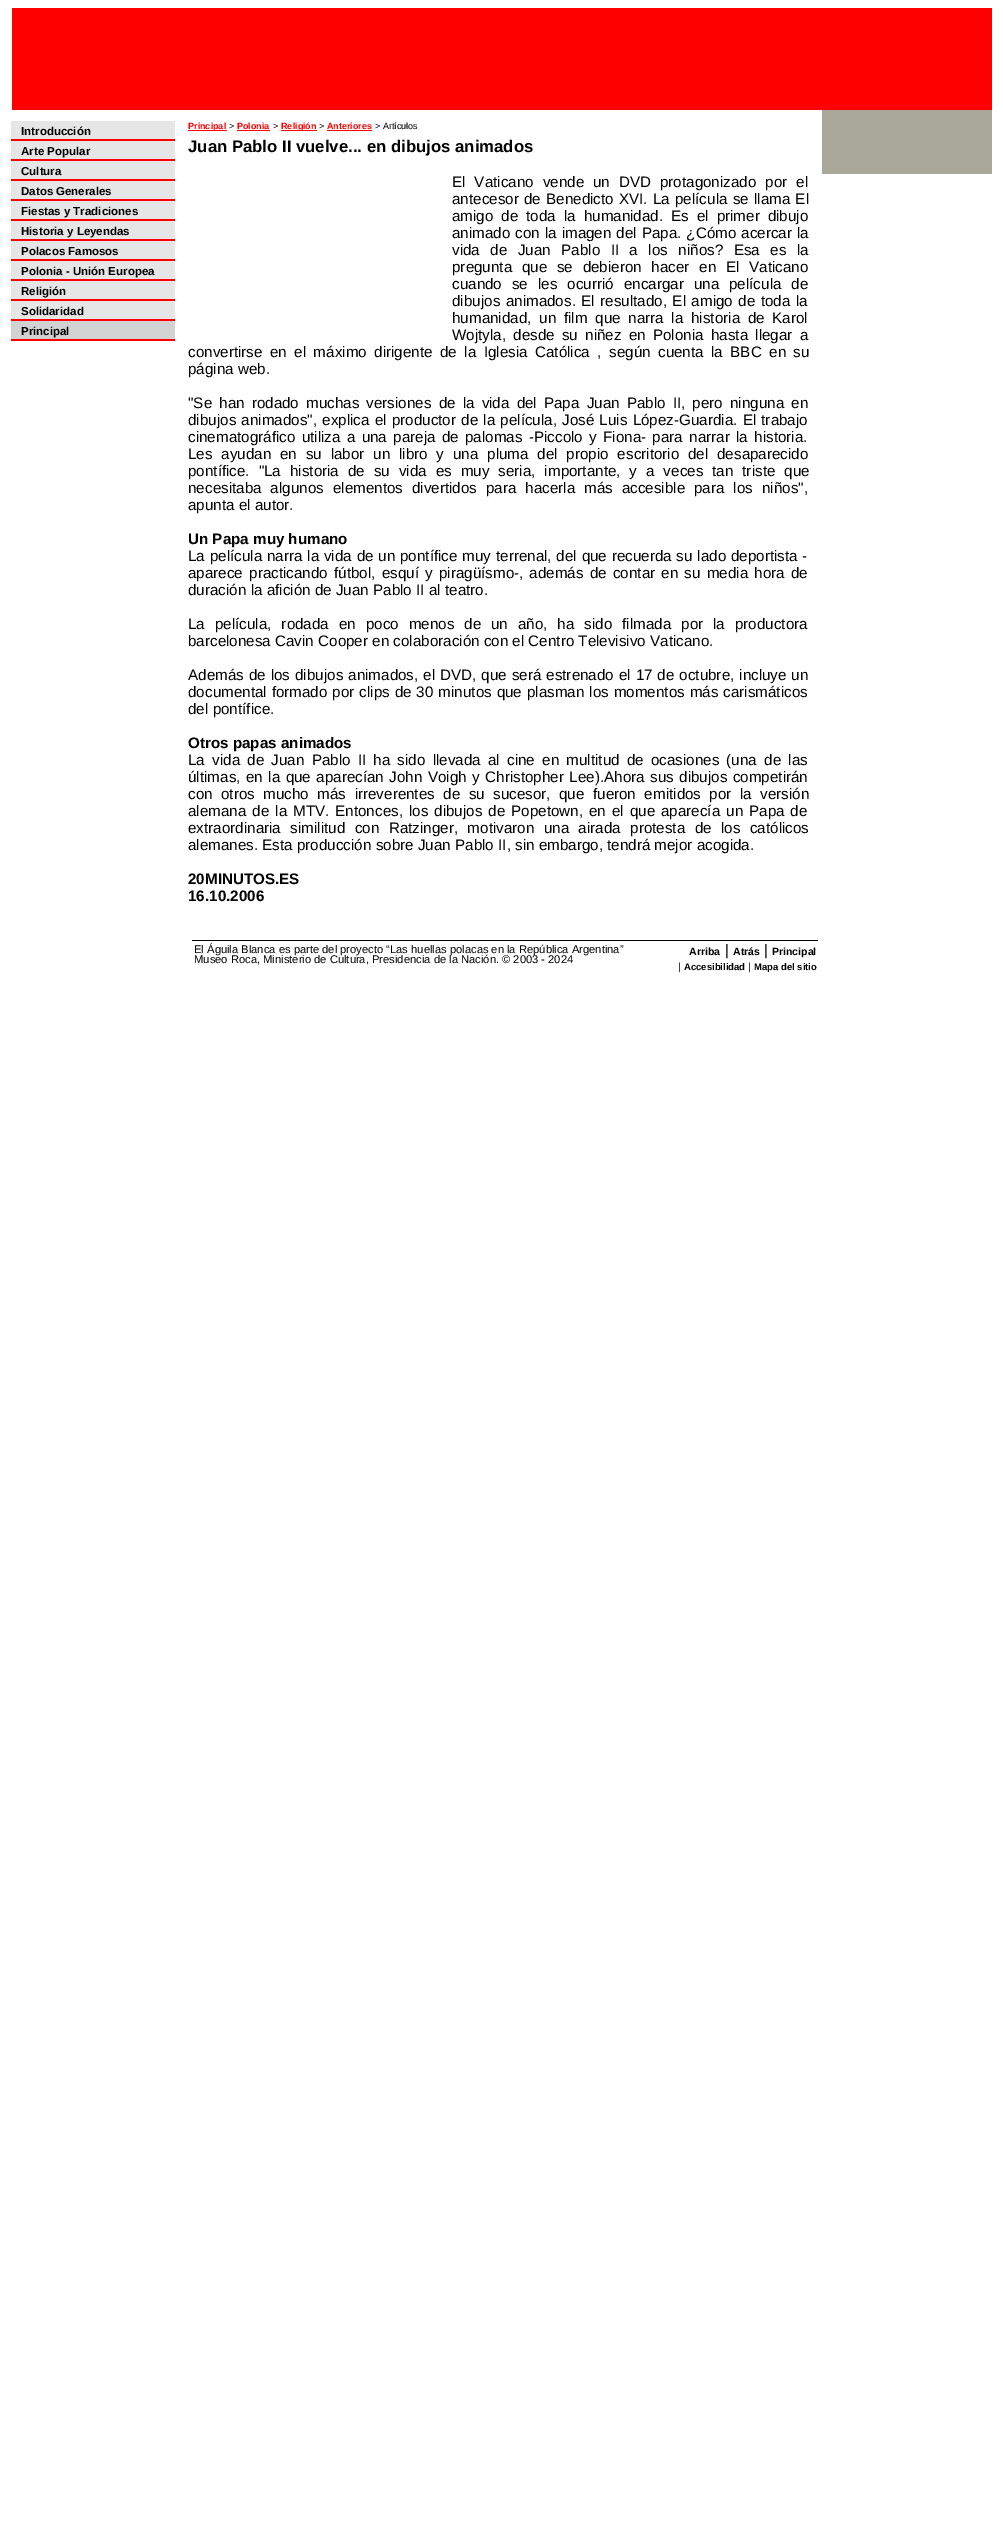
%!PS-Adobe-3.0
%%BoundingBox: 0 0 1003 2534
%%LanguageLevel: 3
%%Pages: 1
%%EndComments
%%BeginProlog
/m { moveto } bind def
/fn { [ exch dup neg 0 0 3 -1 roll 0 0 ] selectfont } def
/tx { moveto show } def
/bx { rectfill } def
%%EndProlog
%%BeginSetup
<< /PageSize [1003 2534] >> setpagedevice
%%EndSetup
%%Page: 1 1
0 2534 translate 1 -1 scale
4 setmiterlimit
1 setgray
0 0 1003 2534 bx
1 0 0 setrgbcolor
12 8 980 102 bx
0.902 setgray
11 121 164 18 bx
1 0 0 setrgbcolor
11 139 164 2 bx
/LiberationSans-Bold 11.5 fn
0 setgray
(Introducción) 21 135 tx
0.902 setgray
11 141 164 18 bx
1 0 0 setrgbcolor
11 159 164 2 bx
0 setgray
(Arte Popular) 21 155 tx
0.902 setgray
11 161 164 18 bx
1 0 0 setrgbcolor
11 179 164 2 bx
0 setgray
(Cultura) 21 175 tx
0.902 setgray
11 181 164 18 bx
1 0 0 setrgbcolor
11 199 164 2 bx
0 setgray
(Datos Generales) 21 195 tx
0.902 setgray
11 201 164 18 bx
1 0 0 setrgbcolor
11 219 164 2 bx
0 setgray
(Fiestas y Tradiciones) 21 215 tx
0.902 setgray
11 221 164 18 bx
1 0 0 setrgbcolor
11 239 164 2 bx
0 setgray
(Historia y Leyendas) 21 235 tx
0.902 setgray
11 241 164 18 bx
1 0 0 setrgbcolor
11 259 164 2 bx
0 setgray
(Polacos Famosos) 21 255 tx
0.902 setgray
11 261 164 18 bx
1 0 0 setrgbcolor
11 279 164 2 bx
0 setgray
(Polonia - Unión Europea) 21 275 tx
0.902 setgray
11 281 164 18 bx
1 0 0 setrgbcolor
11 299 164 2 bx
0 setgray
(Religión) 21 295 tx
0.902 setgray
11 301 164 18 bx
1 0 0 setrgbcolor
11 319 164 2 bx
0 setgray
(Solidaridad) 21 315 tx
0.824 setgray
11 321 164 18 bx
1 0 0 setrgbcolor
11 339 164 2 bx
0 setgray
(Principal) 21 335 tx
1 0 0 setrgbcolor
188 130 39 1 bx
/LiberationSans-Bold 9 fn
(Principal) 188 129 tx
/LiberationSans-Regular 9 fn
0 setgray
(>) 229 129 tx
/LiberationSans-Bold 9 fn
1 0 0 setrgbcolor
(Polonia) 237 129 tx
237 130 33 1 bx
/LiberationSans-Regular 9 fn
0 setgray
(>) 273 129 tx
1 0 0 setrgbcolor
281 130 36 1 bx
/LiberationSans-Bold 9 fn
(Religión) 281 129 tx
/LiberationSans-Regular 9 fn
0 setgray
(>) 319 129 tx
/LiberationSans-Bold 9 fn
1 0 0 setrgbcolor
(Anteriores) 327 129 tx
327 130 45 1 bx
/LiberationSans-Regular 9 fn
0 setgray
(> Artículos) 375 129 tx
/LiberationSans-Bold 16.75 fn
(Juan Pablo II vuelve... en dibujos animados) 188 152 tx
/LiberationSans-Regular 15.2 fn
452 187 m 4.75 0 32 (El Vaticano vende un DVD protagonizado por el) widthshow
452 204 m 1 0 32 (antecesor de Benedicto XVI. La película se llama El) widthshow
452 221 m 3.75 0 32 (amigo de toda la humanidad. Es el primer dibujo) widthshow
452 238 m 0.75 0 32 (animado con la imagen del Papa. ¿Cómo acercar la) widthshow
452 255 m 6.25 0 32 (vida de Juan Pablo II a los niños? Esa es la) widthshow
452 272 m 5.5 0 32 (pregunta que se debieron hacer en El Vaticano) widthshow
452 289 m 5.75 0 32 (cuando se les ocurrió encargar una película de) widthshow
452 306 m 1.25 0 32 (dibujos animados. El resultado, El amigo de toda la) widthshow
452 323 m 3.5 0 32 (humanidad, un film que narra la historia de Karol) widthshow
452 340 m 3 0 32 (Wojtyla, desde su niñez en Polonia hasta llegar a) widthshow
188 357 m 3.25 0 32 (convertirse en el máximo dirigente de la Iglesia Católica , según cuenta la BBC en su) widthshow
(página web.) 188 374 tx
188 408 m 2.9 0 32 ("Se han rodado muchas versiones de la vida del Papa Juan Pablo II, pero ninguna en) widthshow
188 425 m 1 0 32 (dibujos animados", explica el productor de la película, José Luis López-Guardia. El trabajo) widthshow
188 442 m 2.1 0 32 (cinematográfico utiliza a una pareja de palomas -Piccolo y Fiona- para narrar la historia.) widthshow
188 459 m 4.6 0 32 (Les ayudan en su labor un libro y una pluma del propio escritorio del desaparecido) widthshow
188 476 m 4.75 0 32 (pontífice. "La historia de su vida es muy seria, importante, y a veces tan triste que) widthshow
188 493 m 4.75 0 32 (necesitaba algunos elementos divertidos para hacerla más accesible para los niños",) widthshow
(apunta el autor.) 188 510 tx
/LiberationSans-Bold 15.2 fn
(Un Papa muy humano) 188 544 tx
/LiberationSans-Regular 15.2 fn
188 561 m 0.6 0 32 (La película narra la vida de un pontífice muy terrenal, del que recuerda su lado deportista -) widthshow
188 578 m 2 0 32 (aparece practicando fútbol, esquí y piragüísmo-, además de contar en su media hora de) widthshow
(duración la afición de Juan Pablo II al teatro.) 188 595 tx
188 629 m 5.75 0 32 (La película, rodada en poco menos de un año, ha sido filmada por la productora) widthshow
(barcelonesa Cavin Cooper en colaboración con el Centro Televisivo Vaticano.) 188 646 tx
188 680 m 0.75 0 32 (Además de los dibujos animados, el DVD, que será estrenado el 17 de octubre, incluye un) widthshow
188 697 m 0.75 0 32 (documental formado por clips de 30 minutos que plasman los momentos más carismáticos) widthshow
(del pontífice.) 188 714 tx
/LiberationSans-Bold 15.2 fn
(Otros papas animados) 188 748 tx
/LiberationSans-Regular 15.2 fn
188 765 m 3 0 32 (La vida de Juan Pablo II ha sido llevada al cine en multitud de ocasiones \(una de las) widthshow
188 782 m 1.25 0 32 (últimas, en la que aparecían John Voigh y Christopher Lee\).Ahora sus dibujos competirán) widthshow
188 799 m 4.25 0 32 (con otros mucho más irreverentes de su sucesor, que fueron emitidos por la versión) widthshow
188 816 m 1.75 0 32 (alemana de la MTV. Entonces, los dibujos de Popetown, en el que aparecía un Papa de) widthshow
188 833 m 5.25 0 32 (extraordinaria similitud con Ratzinger, motivaron una airada protesta de los católicos) widthshow
(alemanes. Esta producción sobre Juan Pablo II, sin embargo, tendrá mejor acogida.) 188 850 tx
/LiberationSans-Bold 15.2 fn
(20MINUTOS.ES) 188 884 tx
(16.10.2006) 188 901 tx
0.659 0.655 0.596 setrgbcolor
822 110 170 64 bx
/LiberationSans-Regular 11.2 fn
0 setgray
(El Águila Blanca es parte del proyecto “Las huellas polacas en la República Argentina”) 194 953 tx
(Museo Roca, Ministerio de Cultura, Presidencia de la Nación. © 2003 - 2024) 194 963 tx
192 940 626 1 bx
/LiberationSans-Bold 10.5 fn
(Arriba) 689 955 tx
/LiberationSans-Regular 15.2 fn
(|) 725 955 tx
/LiberationSans-Bold 10.5 fn
(Atrás) 733 955 tx
/LiberationSans-Regular 15.2 fn
(|) 764 955 tx
/LiberationSans-Bold 10.5 fn
(Principal) 772 955 tx
/LiberationSans-Regular 10.5 fn
(|) 678 970 tx
/LiberationSans-Bold 9.5 fn
(Accesibilidad) 684 970 tx
/LiberationSans-Regular 10.5 fn
(|) 748 970 tx
/LiberationSans-Bold 9.5 fn
(Mapa del sitio) 754 970 tx
showpage
%%EOF
